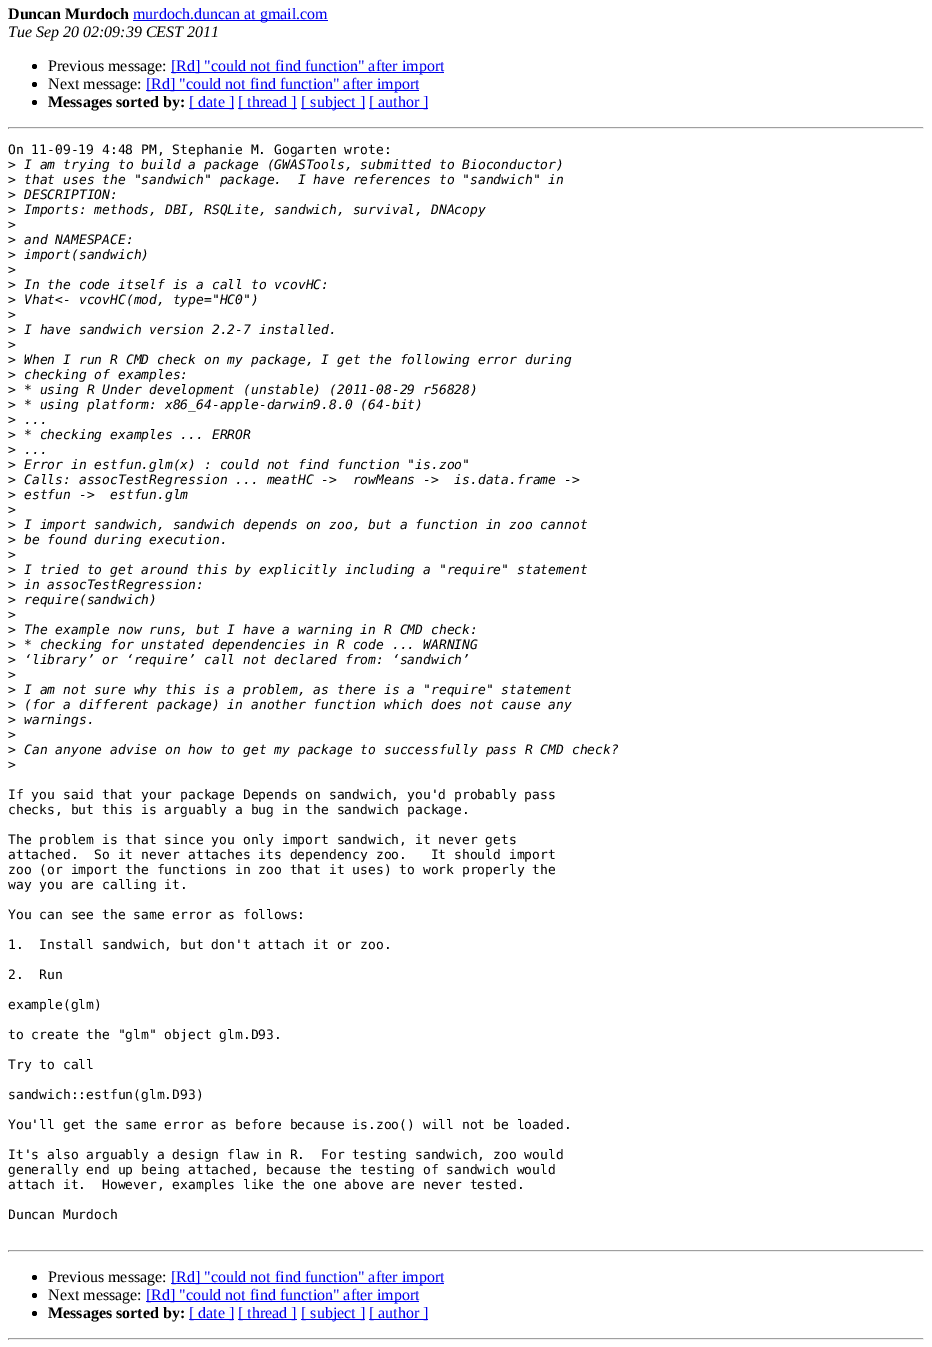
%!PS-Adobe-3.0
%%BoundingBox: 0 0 932 1347
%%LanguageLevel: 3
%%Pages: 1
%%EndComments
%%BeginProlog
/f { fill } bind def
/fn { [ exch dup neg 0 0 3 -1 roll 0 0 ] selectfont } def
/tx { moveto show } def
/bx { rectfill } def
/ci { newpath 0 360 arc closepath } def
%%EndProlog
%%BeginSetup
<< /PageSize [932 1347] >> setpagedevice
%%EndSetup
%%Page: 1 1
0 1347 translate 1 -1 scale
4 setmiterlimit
1 setgray
0 0 932 1347 bx
/LiberationSerif-Bold 16 fn
0 setgray
(Duncan Murdoch) 8 19 tx
0 0 0.933 setrgbcolor
133 20 195 1 bx
/LiberationSerif-Regular 16 fn
(murdoch.duncan at gmail.com) 133 19 tx
/LiberationSerif-Italic 16 fn
0 setgray
(Tue Sep 20 02:09:39 CEST 2011) 8 37 tx
34.5 66.5 2.5 ci f
/LiberationSerif-Regular 16 fn
(Previous message:) 48 71 tx
0 0 0.933 setrgbcolor
171 72 273 1 bx
([Rd] "could not find function" after import) 171 71 tx
0 setgray
34.5 84.5 2.5 ci f
(Next message:) 48 89 tx
0 0 0.933 setrgbcolor
146 90 273 1 bx
([Rd] "could not find function" after import) 146 89 tx
0 setgray
34.5 102.5 2.5 ci f
/LiberationSerif-Bold 16 fn
(Messages sorted by:) 48 107 tx
0 0 0.933 setrgbcolor
189 108 45 1 bx
/LiberationSerif-Regular 16 fn
([ date ]) 189 107 tx
238 108 59 1 bx
([ thread ]) 238 107 tx
301 108 64 1 bx
([ subject ]) 301 107 tx
369 108 59 1 bx
([ author ]) 369 107 tx
0.624 setgray
8 127 916 1 bx
0.933 setgray
923 127 1 2 bx
8 128 916 1 bx
0.624 setgray
8 127 1 2 bx
/DejaVuSansMono-Regular 13 fn
0 setgray
(On 11-09-19 4:48 PM, Stephanie M. Gogarten wrote:) 8 154 tx
(>) 8 169 tx
/DejaVuSansMono-Italic 13 fn
(I am trying to build a package \(GWASTools, submitted to Bioconductor\)) 24 169 tx
/DejaVuSansMono-Regular 13 fn
(>) 8 184 tx
/DejaVuSansMono-Italic 13 fn
(that uses the "sandwich" package.  I have references to "sandwich" in) 24 184 tx
/DejaVuSansMono-Regular 13 fn
(>) 8 199 tx
/DejaVuSansMono-Italic 13 fn
(DESCRIPTION:) 24 199 tx
/DejaVuSansMono-Regular 13 fn
(>) 8 214 tx
/DejaVuSansMono-Italic 13 fn
(Imports: methods, DBI, RSQLite, sandwich, survival, DNAcopy) 24 214 tx
/DejaVuSansMono-Regular 13 fn
(>) 8 229 tx
(>) 8 244 tx
/DejaVuSansMono-Italic 13 fn
(and NAMESPACE:) 24 244 tx
/DejaVuSansMono-Regular 13 fn
(>) 8 259 tx
/DejaVuSansMono-Italic 13 fn
(import\(sandwich\)) 24 259 tx
/DejaVuSansMono-Regular 13 fn
(>) 8 274 tx
(>) 8 289 tx
/DejaVuSansMono-Italic 13 fn
(In the code itself is a call to vcovHC:) 24 289 tx
/DejaVuSansMono-Regular 13 fn
(>) 8 304 tx
/DejaVuSansMono-Italic 13 fn
(Vhat<- vcovHC\(mod, type="HC0"\)) 24 304 tx
/DejaVuSansMono-Regular 13 fn
(>) 8 319 tx
(>) 8 334 tx
/DejaVuSansMono-Italic 13 fn
(I have sandwich version 2.2-7 installed.) 24 334 tx
/DejaVuSansMono-Regular 13 fn
(>) 8 349 tx
(>) 8 364 tx
/DejaVuSansMono-Italic 13 fn
(When I run R CMD check on my package, I get the following error during) 24 364 tx
/DejaVuSansMono-Regular 13 fn
(>) 8 379 tx
/DejaVuSansMono-Italic 13 fn
(checking of examples:) 24 379 tx
/DejaVuSansMono-Regular 13 fn
(>) 8 394 tx
/DejaVuSansMono-Italic 13 fn
(* using R Under development \(unstable\) \(2011-08-29 r56828\)) 24 394 tx
/DejaVuSansMono-Regular 13 fn
(>) 8 409 tx
/DejaVuSansMono-Italic 13 fn
(* using platform: x86_64-apple-darwin9.8.0 \(64-bit\)) 24 409 tx
/DejaVuSansMono-Regular 13 fn
(>) 8 424 tx
/DejaVuSansMono-Italic 13 fn
(...) 24 424 tx
/DejaVuSansMono-Regular 13 fn
(>) 8 439 tx
/DejaVuSansMono-Italic 13 fn
(* checking examples ... ERROR) 24 439 tx
/DejaVuSansMono-Regular 13 fn
(>) 8 454 tx
/DejaVuSansMono-Italic 13 fn
(...) 24 454 tx
/DejaVuSansMono-Regular 13 fn
(>) 8 469 tx
/DejaVuSansMono-Italic 13 fn
(Error in estfun.glm\(x\) : could not find function "is.zoo") 24 469 tx
/DejaVuSansMono-Regular 13 fn
(>) 8 484 tx
/DejaVuSansMono-Italic 13 fn
(Calls: assocTestRegression ... meatHC ->  rowMeans ->  is.data.frame ->) 24 484 tx
/DejaVuSansMono-Regular 13 fn
(>) 8 499 tx
/DejaVuSansMono-Italic 13 fn
(estfun ->  estfun.glm) 24 499 tx
/DejaVuSansMono-Regular 13 fn
(>) 8 514 tx
(>) 8 529 tx
/DejaVuSansMono-Italic 13 fn
(I import sandwich, sandwich depends on zoo, but a function in zoo cannot) 24 529 tx
/DejaVuSansMono-Regular 13 fn
(>) 8 544 tx
/DejaVuSansMono-Italic 13 fn
(be found during execution.) 24 544 tx
/DejaVuSansMono-Regular 13 fn
(>) 8 559 tx
(>) 8 574 tx
/DejaVuSansMono-Italic 13 fn
(I tried to get around this by explicitly including a "require" statement) 24 574 tx
/DejaVuSansMono-Regular 13 fn
(>) 8 589 tx
/DejaVuSansMono-Italic 13 fn
(in assocTestRegression:) 24 589 tx
/DejaVuSansMono-Regular 13 fn
(>) 8 604 tx
/DejaVuSansMono-Italic 13 fn
(require\(sandwich\)) 24 604 tx
/DejaVuSansMono-Regular 13 fn
(>) 8 619 tx
(>) 8 634 tx
/DejaVuSansMono-Italic 13 fn
(The example now runs, but I have a warning in R CMD check:) 24 634 tx
/DejaVuSansMono-Regular 13 fn
(>) 8 649 tx
/DejaVuSansMono-Italic 13 fn
(* checking for unstated dependencies in R code ... WARNING) 24 649 tx
/DejaVuSansMono-Regular 13 fn
(>) 8 664 tx
/DejaVuSansMono-Italic 13 fn
(‘library’ or ‘require’ call not declared from: ‘sandwich’) 24 664 tx
/DejaVuSansMono-Regular 13 fn
(>) 8 679 tx
(>) 8 694 tx
/DejaVuSansMono-Italic 13 fn
(I am not sure why this is a problem, as there is a "require" statement) 24 694 tx
/DejaVuSansMono-Regular 13 fn
(>) 8 709 tx
/DejaVuSansMono-Italic 13 fn
(\(for a different package\) in another function which does not cause any) 24 709 tx
/DejaVuSansMono-Regular 13 fn
(>) 8 724 tx
/DejaVuSansMono-Italic 13 fn
(warnings.) 24 724 tx
/DejaVuSansMono-Regular 13 fn
(>) 8 739 tx
(>) 8 754 tx
/DejaVuSansMono-Italic 13 fn
(Can anyone advise on how to get my package to successfully pass R CMD check?) 24 754 tx
/DejaVuSansMono-Regular 13 fn
(>) 8 769 tx
(If you said that your package Depends on sandwich, you'd probably pass) 8 799 tx
(checks, but this is arguably a bug in the sandwich package.) 8 814 tx
(The problem is that since you only import sandwich, it never gets) 8 844 tx
(attached.  So it never attaches its dependency zoo.   It should import) 8 859 tx
(zoo \(or import the functions in zoo that it uses\) to work properly the) 8 874 tx
(way you are calling it.) 8 889 tx
(You can see the same error as follows:) 8 919 tx
(1.  Install sandwich, but don't attach it or zoo.) 8 949 tx
(2.  Run) 8 979 tx
(example\(glm\)) 8 1009 tx
(to create the "glm" object glm.D93.) 8 1039 tx
(Try to call) 8 1069 tx
(sandwich::estfun\(glm.D93\)) 8 1099 tx
(You'll get the same error as before because is.zoo\(\) will not be loaded.) 8 1129 tx
(It's also arguably a design flaw in R.  For testing sandwich, zoo would) 8 1159 tx
(generally end up being attached, because the testing of sandwich would) 8 1174 tx
(attach it.  However, examples like the one above are never tested.) 8 1189 tx
(Duncan Murdoch) 8 1219 tx
0.624 setgray
8 1250 916 1 bx
0.933 setgray
923 1250 1 2 bx
8 1251 916 1 bx
0.624 setgray
8 1250 1 2 bx
0 setgray
34.5 1277.5 2.5 ci f
/LiberationSerif-Regular 16 fn
(Previous message:) 48 1282 tx
0 0 0.933 setrgbcolor
171 1283 273 1 bx
([Rd] "could not find function" after import) 171 1282 tx
0 setgray
34.5 1295.5 2.5 ci f
(Next message:) 48 1300 tx
0 0 0.933 setrgbcolor
146 1301 273 1 bx
([Rd] "could not find function" after import) 146 1300 tx
0 setgray
34.5 1313.5 2.5 ci f
/LiberationSerif-Bold 16 fn
(Messages sorted by:) 48 1318 tx
0 0 0.933 setrgbcolor
189 1319 45 1 bx
/LiberationSerif-Regular 16 fn
([ date ]) 189 1318 tx
238 1319 59 1 bx
([ thread ]) 238 1318 tx
301 1319 64 1 bx
([ subject ]) 301 1318 tx
369 1319 59 1 bx
([ author ]) 369 1318 tx
0.624 setgray
8 1338 916 1 bx
0.933 setgray
923 1338 1 2 bx
8 1339 916 1 bx
0.624 setgray
8 1338 1 2 bx
showpage
%%EOF
